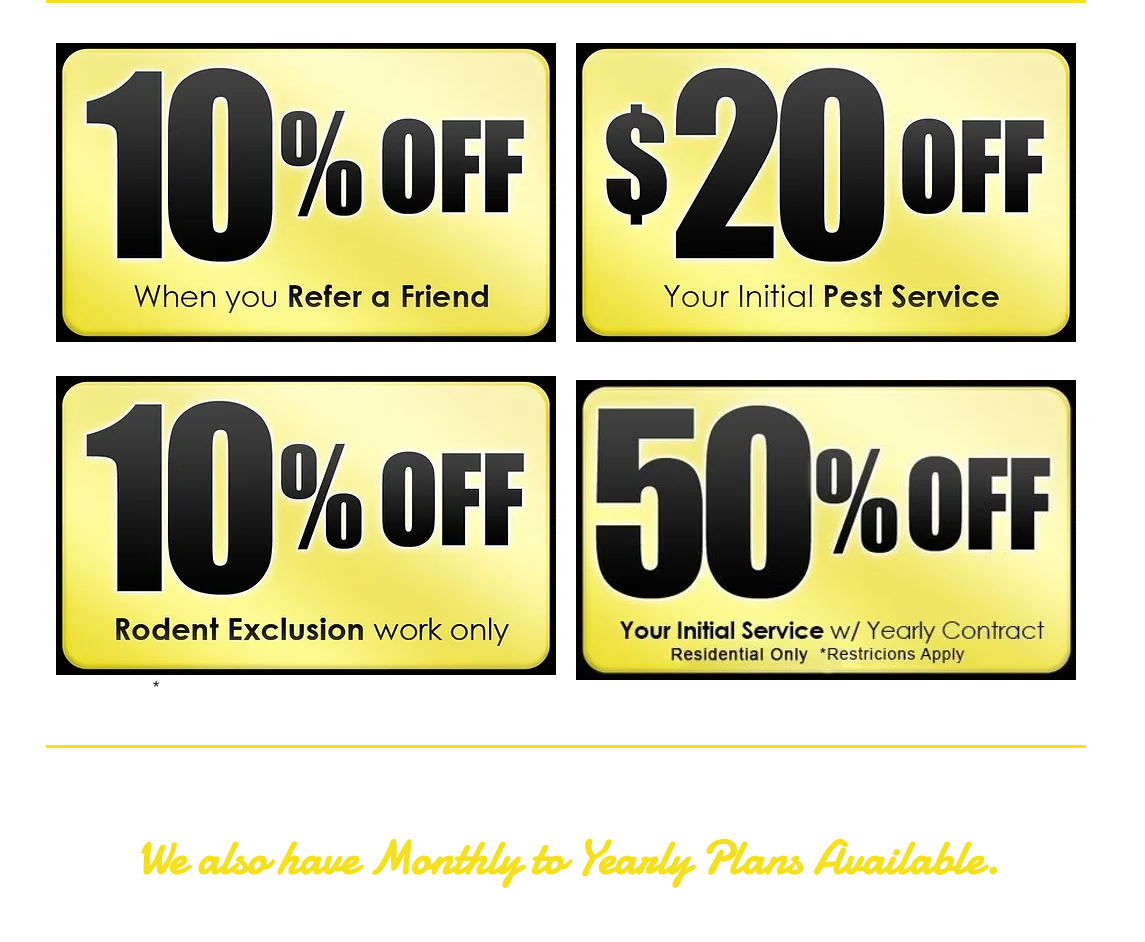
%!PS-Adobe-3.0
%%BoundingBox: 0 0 1145 942
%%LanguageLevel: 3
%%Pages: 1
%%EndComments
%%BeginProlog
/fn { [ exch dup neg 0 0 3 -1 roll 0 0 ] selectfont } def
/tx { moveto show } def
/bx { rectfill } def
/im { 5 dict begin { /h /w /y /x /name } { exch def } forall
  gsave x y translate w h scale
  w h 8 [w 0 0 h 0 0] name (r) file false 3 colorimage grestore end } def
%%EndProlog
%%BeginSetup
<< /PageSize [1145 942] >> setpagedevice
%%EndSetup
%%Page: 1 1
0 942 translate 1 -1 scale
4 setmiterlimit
1 setgray
0 0 1145 942 bx
0.961 0.878 0.122 setrgbcolor
46 0 1040 3 bx
(image0.raw) 576 43 500 299 im
(image1.raw) 576 380 500 300 im
(image2.raw) 56 43 500 299 im
(image3.raw) 56 376 500 299 im
/LiberationSans-Regular 16 fn
0 setgray
(*) 153 692 tx
0.961 0.878 0.122 setrgbcolor
46 745 1040 3 bx
/Damion-Bold 48 fn
(We also have Monthly to Yearly Plans Available.) 137 874 tx
showpage
%%EOF
